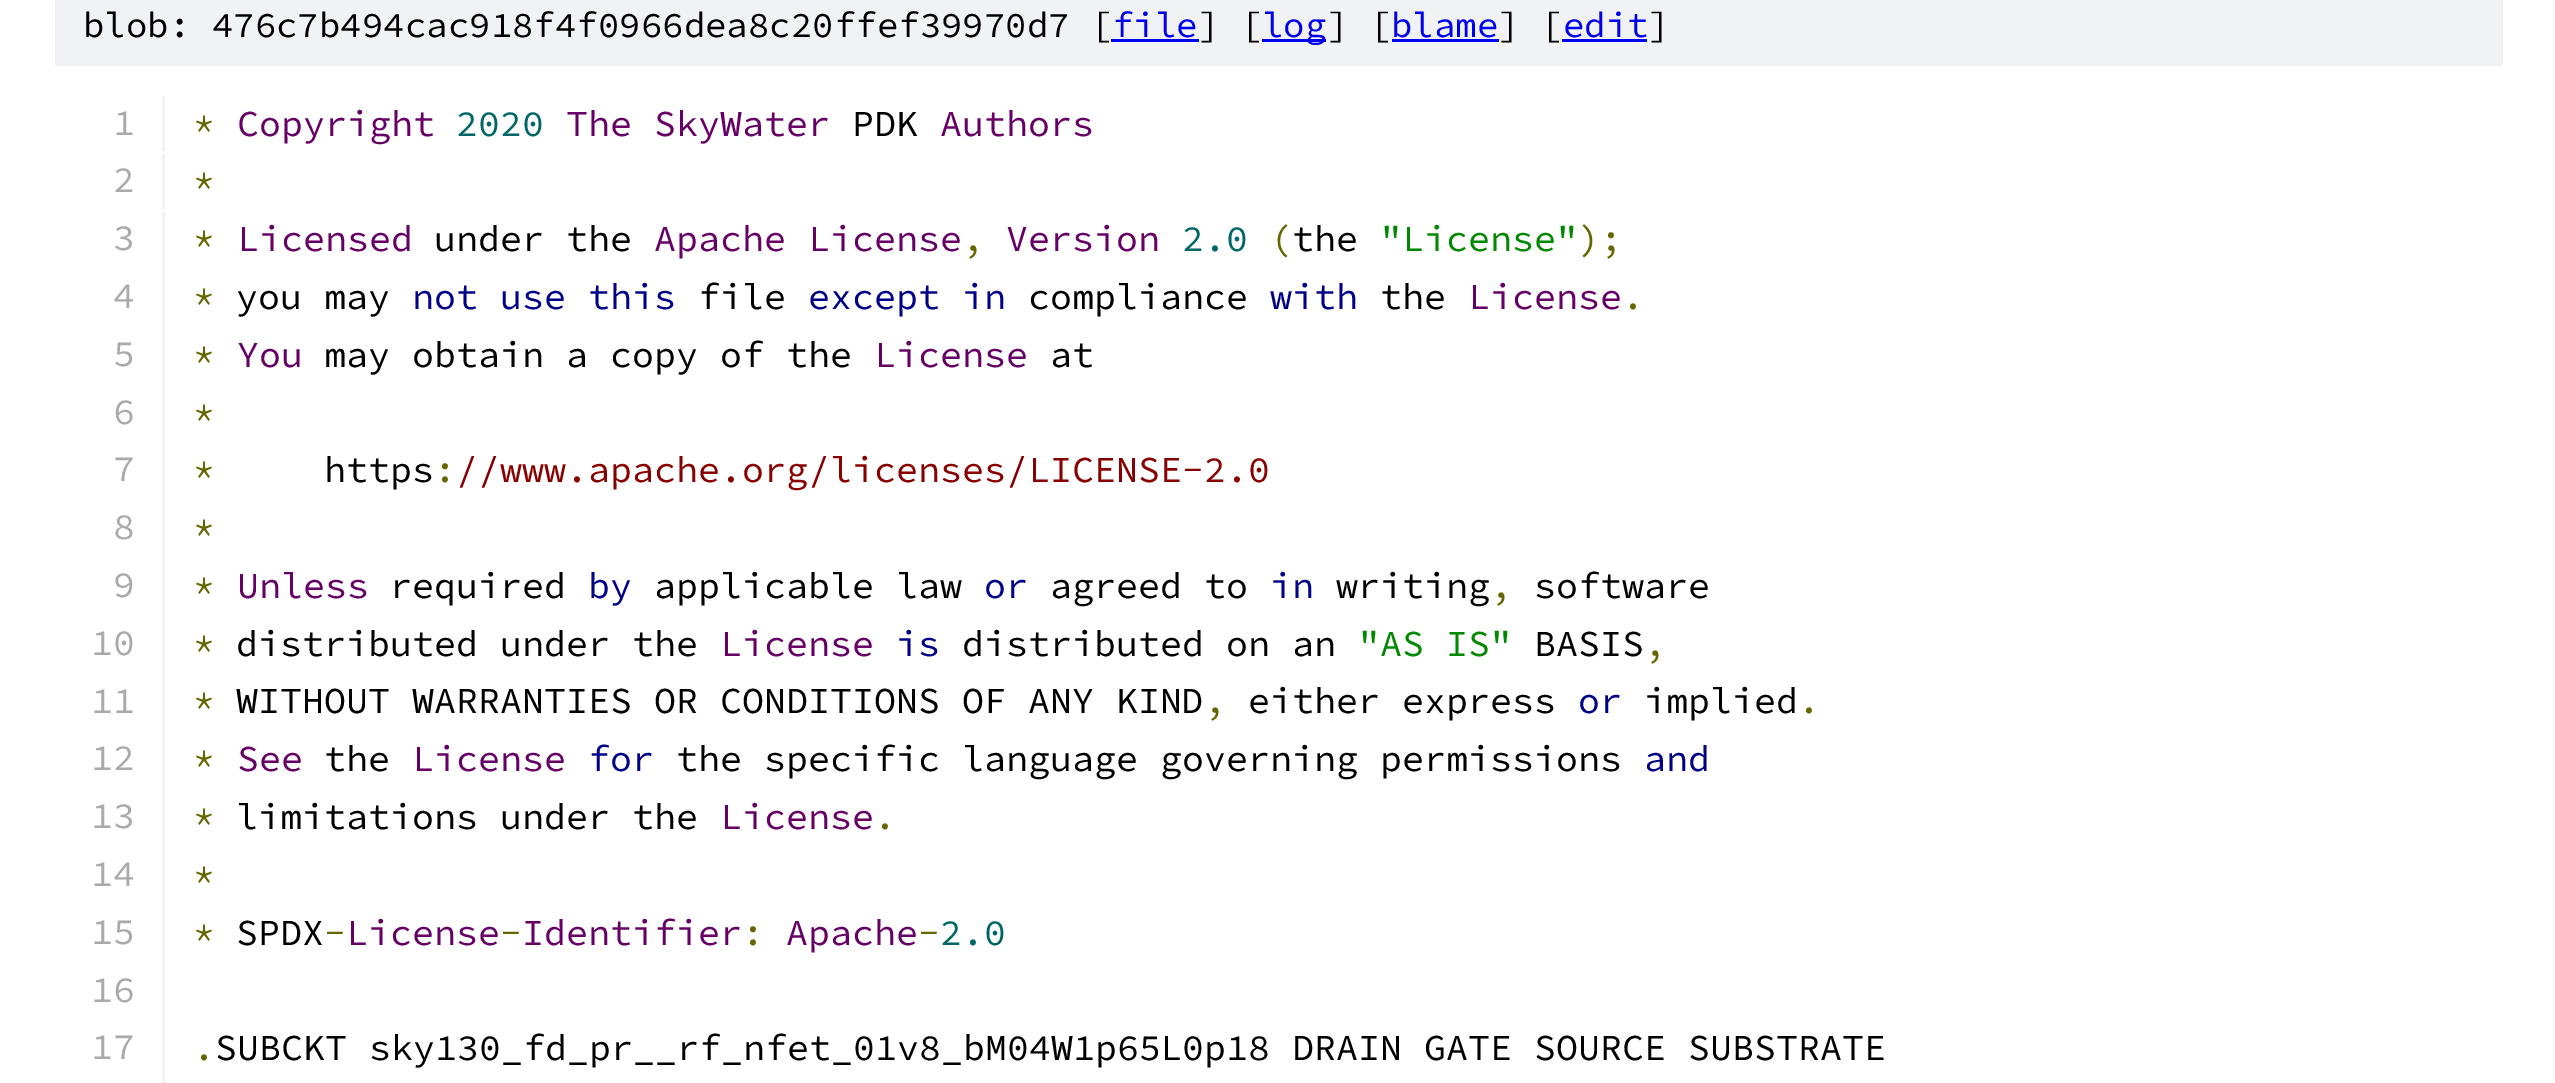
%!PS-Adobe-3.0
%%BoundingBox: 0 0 2555 1083
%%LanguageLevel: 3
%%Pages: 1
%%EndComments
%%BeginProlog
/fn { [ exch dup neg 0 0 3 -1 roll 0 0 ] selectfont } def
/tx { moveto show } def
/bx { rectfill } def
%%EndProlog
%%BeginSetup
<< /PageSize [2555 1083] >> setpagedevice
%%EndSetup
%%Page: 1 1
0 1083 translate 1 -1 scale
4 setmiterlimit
1 setgray
0 0 2555 1083 bx
0.945 0.949 0.953 setrgbcolor
55 0 2448 66 bx
/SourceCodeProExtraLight-ExtraLight 35.75 fn
0 setgray
(blob: 476c7b494cac918f4f0966dea8c20ffef39970d7 [) 83 37 tx
0 0 0.933 setrgbcolor
(file) 1112 37 tx
1111 39 88 3 bx
0 setgray
(] [) 1198 37 tx
0 0 0.933 setrgbcolor
1262 39 64 3 bx
(log) 1262 37 tx
0 setgray
(] [) 1327 37 tx
0 0 0.933 setrgbcolor
(blame) 1391 37 tx
1392 39 107 3 bx
0 setgray
(] [) 1498 37 tx
0 0 0.933 setrgbcolor
(edit) 1563 37 tx
1562 39 85 3 bx
0 setgray
(]) 1648 37 tx
0.945 0.949 0.953 setrgbcolor
162 96 3 55 bx
/SourceCodeProExtraLight-ExtraLight 36.65 fn
0.667 setgray
(1) 113 135 tx
0.4 0.4 0 setrgbcolor
(*) 193 136 tx
0.4 0 0.4 setrgbcolor
(Copyright) 237 136 tx
0 0.4 0.4 setrgbcolor
(2020) 456 136 tx
0.4 0 0.4 setrgbcolor
(The SkyWater) 566 136 tx
0 setgray
(PDK) 852 136 tx
0.4 0 0.4 setrgbcolor
(Authors) 940 136 tx
0.945 0.949 0.953 setrgbcolor
162 154 3 55 bx
0.667 setgray
(2) 113 192 tx
0.4 0.4 0 setrgbcolor
(*) 193 193 tx
0.945 0.949 0.953 setrgbcolor
162 212 3 871 bx
0.667 setgray
(3) 113 250 tx
0.4 0.4 0 setrgbcolor
(*) 193 251 tx
0.4 0 0.4 setrgbcolor
(Licensed) 237 251 tx
0 setgray
(under the) 434 251 tx
0.4 0 0.4 setrgbcolor
(Apache License) 654 251 tx
(Version) 1006 251 tx
0 0.4 0.4 setrgbcolor
(2.0) 1182 251 tx
0.4 0.4 0 setrgbcolor
(\() 1270 251 tx
0 setgray
(the) 1292 251 tx
0 0.533 0 setrgbcolor
("License") 1380 251 tx
0.4 0.4 0 setrgbcolor
(\);) 1578 251 tx
(,) 962 251 tx
0.667 setgray
(4) 113 308 tx
0.4 0.4 0 setrgbcolor
(*) 193 309 tx
0 setgray
(you may) 236 309 tx
0 0 0.533 setrgbcolor
(not use this) 412 309 tx
0 setgray
(file) 698 309 tx
0 0 0.533 setrgbcolor
(except in) 808 309 tx
0 setgray
(compliance) 1028 309 tx
0 0 0.533 setrgbcolor
(with) 1270 309 tx
0 setgray
(the) 1380 309 tx
0.4 0 0.4 setrgbcolor
(License) 1468 309 tx
0.4 0.4 0 setrgbcolor
(.) 1622 309 tx
0.667 setgray
(5) 113 366 tx
0.4 0.4 0 setrgbcolor
(*) 193 367 tx
0.4 0 0.4 setrgbcolor
(You) 237 367 tx
0 setgray
(may obtain a copy of the) 324 367 tx
0.4 0 0.4 setrgbcolor
(License) 874 367 tx
0 setgray
(at) 1050 367 tx
0.667 setgray
(6) 113 424 tx
0.4 0.4 0 setrgbcolor
(*) 193 425 tx
0.667 setgray
(7) 113 481 tx
0.4 0.4 0 setrgbcolor
(*) 193 482 tx
0 setgray
(https) 324 482 tx
0.4 0.4 0 setrgbcolor
(:) 434 482 tx
0.533 0 0 setrgbcolor
(//www.apache.org/licenses/LICENSE-2.0) 456 482 tx
0.667 setgray
(8) 113 539 tx
0.4 0.4 0 setrgbcolor
(*) 193 540 tx
0.667 setgray
(9) 113 597 tx
0.4 0.4 0 setrgbcolor
(*) 193 598 tx
0.4 0 0.4 setrgbcolor
(Unless) 237 598 tx
0 setgray
(required) 390 598 tx
0 0 0.533 setrgbcolor
(by) 588 598 tx
0 setgray
(applicable law) 654 598 tx
0 0 0.533 setrgbcolor
(or) 984 598 tx
0 setgray
(agreed to) 1050 598 tx
0 0 0.533 setrgbcolor
(in) 1270 598 tx
0 setgray
(writing) 1336 598 tx
0.4 0.4 0 setrgbcolor
(,) 1490 598 tx
0 setgray
(software) 1534 598 tx
0.667 setgray
(10) 91 655 tx
0.4 0.4 0 setrgbcolor
(*) 193 656 tx
0 setgray
(distributed under the) 236 656 tx
0.4 0 0.4 setrgbcolor
(License) 720 656 tx
0 0 0.533 setrgbcolor
(is) 896 656 tx
0 setgray
(distributed on an) 962 656 tx
0 0.533 0 setrgbcolor
("AS IS") 1358 656 tx
0 setgray
(BASIS) 1534 656 tx
0.4 0.4 0 setrgbcolor
(,) 1644 656 tx
0.667 setgray
(11) 91 713 tx
0.4 0.4 0 setrgbcolor
(*) 193 713 tx
0 setgray
(WITHOUT WARRANTIES OR CONDITIONS OF ANY KIND) 236 713 tx
0.4 0.4 0 setrgbcolor
(,) 1204 713 tx
0 setgray
(either express) 1248 713 tx
0 0 0.533 setrgbcolor
(or) 1578 713 tx
0 setgray
(implied) 1644 713 tx
0.4 0.4 0 setrgbcolor
(.) 1798 713 tx
0.667 setgray
(12) 91 770 tx
0.4 0.4 0 setrgbcolor
(*) 193 771 tx
0.4 0 0.4 setrgbcolor
(See) 237 771 tx
0 setgray
(the) 324 771 tx
0.4 0 0.4 setrgbcolor
(License) 412 771 tx
0 0 0.533 setrgbcolor
(for) 588 771 tx
0 setgray
(the specific language governing permissions) 676 771 tx
0 0 0.533 setrgbcolor
(and) 1644 771 tx
0.667 setgray
(13) 91 828 tx
0.4 0.4 0 setrgbcolor
(*) 193 829 tx
0 setgray
(limitations under the) 236 829 tx
0.4 0 0.4 setrgbcolor
(License) 720 829 tx
0.4 0.4 0 setrgbcolor
(.) 874 829 tx
0.667 setgray
(14) 91 886 tx
0.4 0.4 0 setrgbcolor
(*) 193 887 tx
0.667 setgray
(15) 91 944 tx
0.4 0.4 0 setrgbcolor
(*) 193 945 tx
0 setgray
(SPDX) 236 945 tx
0.4 0.4 0 setrgbcolor
(-) 324 945 tx
0.4 0 0.4 setrgbcolor
(License Identifier) 346 945 tx
0.4 0.4 0 setrgbcolor
(:) 742 945 tx
0.4 0 0.4 setrgbcolor
(Apache) 786 945 tx
0 0.4 0.4 setrgbcolor
(2.0) 940 945 tx
0.4 0.4 0 setrgbcolor
(-) 500 945 tx
(-) 918 945 tx
0.667 setgray
(16) 91 1002 tx
(17) 91 1059 tx
0.4 0.4 0 setrgbcolor
(.) 193 1060 tx
0 setgray
(SUBCKT sky130_fd_pr__rf_nfet_01v8_bM04W1p65L0p18 DRAIN GATE SOURCE SUBSTRATE) 215 1060 tx
showpage
%%EOF
